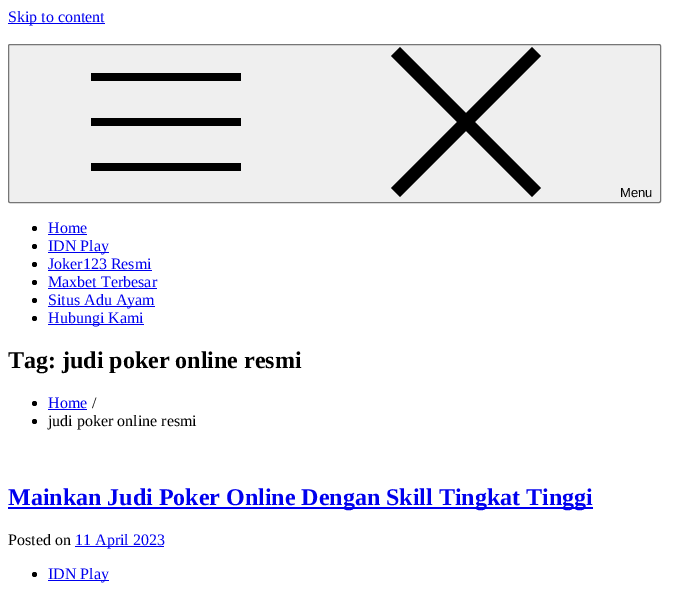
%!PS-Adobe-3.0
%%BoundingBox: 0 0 693 599
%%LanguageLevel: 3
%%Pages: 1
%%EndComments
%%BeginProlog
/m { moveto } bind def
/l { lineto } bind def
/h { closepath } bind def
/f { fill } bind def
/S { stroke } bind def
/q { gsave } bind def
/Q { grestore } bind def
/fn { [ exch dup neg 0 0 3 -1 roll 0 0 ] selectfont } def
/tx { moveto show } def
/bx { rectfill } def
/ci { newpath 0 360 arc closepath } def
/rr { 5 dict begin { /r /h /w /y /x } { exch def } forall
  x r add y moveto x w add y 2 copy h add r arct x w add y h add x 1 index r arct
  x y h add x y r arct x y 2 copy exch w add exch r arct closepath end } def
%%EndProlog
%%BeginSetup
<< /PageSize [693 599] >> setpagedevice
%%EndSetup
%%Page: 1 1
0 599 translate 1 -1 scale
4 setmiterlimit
1 setgray
0 0 693 599 bx
0 0 0.933 setrgbcolor
8 23 97 1 bx
/LiberationSerif-Regular 16 fn
(Skip to content) 8 22 tx
0.937 setgray
8.5 44.5 652 158 1.5 rr q f Q
0.463 setgray
S
0 setgray
91 73 150 8 bx
541 56 m 532 47 l 466 113 l 400 47 l 391 56 l 457 122 l 391 188 l 400 197 l 466 131 l 532 197 l 541 188 l 475 122 l h f
91 118 150 8 bx
91 163 150 8 bx
/LiberationSans-Regular 13 fn
(Menu) 620 197 tx
34.5 228.5 2.5 ci f
/LiberationSerif-Regular 16 fn
0 0 0.933 setrgbcolor
(Home) 48 233 tx
48 234 39 1 bx
0 setgray
34.5 246.5 2.5 ci f
0 0 0.933 setrgbcolor
48 252 61 1 bx
(IDN Play) 48 251 tx
0 setgray
34.5 264.5 2.5 ci f
0 0 0.933 setrgbcolor
(Joker123 Resmi) 48 269 tx
48 270 104 1 bx
0 setgray
34.5 282.5 2.5 ci f
0 0 0.933 setrgbcolor
(Maxbet Terbesar) 48 287 tx
48 288 109 1 bx
0 setgray
34.5 300.5 2.5 ci f
0 0 0.933 setrgbcolor
48 306 107 1 bx
(Situs Adu Ayam) 48 305 tx
0 setgray
34.5 318.5 2.5 ci f
0 0 0.933 setrgbcolor
48 324 96 1 bx
(Hubungi Kami) 48 323 tx
/LiberationSerif-Bold 24 fn
0 setgray
(Tag: judi poker online resmi) 8 368 tx
34.5 403.5 2.5 ci f
/LiberationSerif-Regular 16 fn
0 0 0.933 setrgbcolor
(Home) 48 408 tx
48 409 39 1 bx
0 setgray
(/) 92 408 tx
34.5 421.5 2.5 ci f
(judi poker online resmi) 48 426 tx
0 0 0.933 setrgbcolor
8 507 585 2 bx
/LiberationSerif-Bold 24 fn
(Mainkan Judi Poker Online Dengan Skill Tingkat Tinggi) 8 505 tx
/LiberationSerif-Regular 16 fn
0 setgray
(Posted on) 8 545 tx
0 0 0.933 setrgbcolor
75 546 89 1 bx
(11 April 2023) 75 545 tx
0 setgray
34.5 574.5 2.5 ci f
0 0 0.933 setrgbcolor
48 580 61 1 bx
(IDN Play) 48 579 tx
showpage
%%EOF
